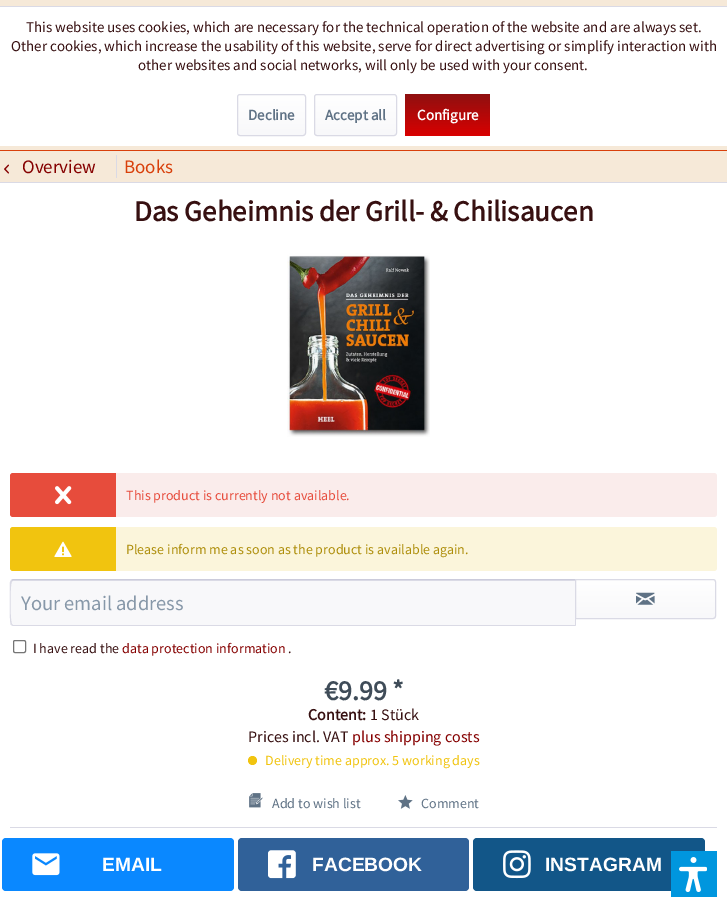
%!PS-Adobe-3.0
%%BoundingBox: 0 0 727 907
%%LanguageLevel: 3
%%Pages: 1
%%EndComments
%%BeginProlog
/m { moveto } bind def
/l { lineto } bind def
/c { curveto } bind def
/h { closepath } bind def
/f { fill } bind def
/S { stroke } bind def
/q { gsave } bind def
/Q { grestore } bind def
/fn { [ exch dup neg 0 0 3 -1 roll 0 0 ] selectfont } def
/tx { moveto show } def
/bx { rectfill } def
/ci { newpath 0 360 arc closepath } def
/rr { 5 dict begin { /r /h /w /y /x } { exch def } forall
  x r add y moveto x w add y 2 copy h add r arct x w add y h add x 1 index r arct
  x y h add x y r arct x y 2 copy exch w add exch r arct closepath end } def
/im { 5 dict begin { /h /w /y /x /name } { exch def } forall
  gsave x y translate w h scale
  w h 8 [w 0 0 h 0 0] name (r) file false 3 colorimage grestore end } def
%%EndProlog
%%BeginSetup
<< /PageSize [727 907] >> setpagedevice
%%EndSetup
%%Page: 1 1
0 907 translate 1 -1 scale
4 setmiterlimit
0.965 0.914 0.847 setrgbcolor
0 0 727 907 bx
1 setgray
0 7 727 139 bx
0.855 0.855 0.898 setrgbcolor
0 6 727 1 bx
/SourceSansPro-Regular 15 fn
0.216 0.063 0.067 setrgbcolor
(This website uses cookies, which are necessary for the technical operation of the website and are always set.) 26 32 tx
(Other cookies, which increase the usability of this website, serve for direct advertising or simplify interaction with) 11 51 tx
(other websites and social networks, will only be used with your consent.) 138 70 tx
q 238 95 67 40 2 rr clip newpath
<< /ShadingType 2 /ColorSpace /DeviceRGB /Coords [272 95 272 135] /Extend [true true] /Function << /FunctionType 2 /Domain [0 1] /C0 [1 1 1] /C1 [0.973 0.973 0.98] /N 1 >> >> shfill Q
0.855 0.855 0.898 setrgbcolor
237.5 94.5 68 41 2.5 rr S
/SourceSansPro-Bold 15 fn
0.373 0.447 0.522 setrgbcolor
(Decline) 248 120 tx
q 315 95 81 40 2 rr clip newpath
<< /ShadingType 2 /ColorSpace /DeviceRGB /Coords [356 95 356 135] /Extend [true true] /Function << /FunctionType 2 /Domain [0 1] /C0 [1 1 1] /C1 [0.973 0.973 0.98] /N 1 >> >> shfill Q
0.855 0.855 0.898 setrgbcolor
314.5 94.5 82 41 2.5 rr S
0.373 0.447 0.522 setrgbcolor
(Accept all) 325 120 tx
q 405 94 85 42 3 rr clip newpath
<< /ShadingType 2 /ColorSpace /DeviceRGB /Coords [448 52 448 136] /Extend [true true] /Function << /FunctionType 2 /Domain [0 1] /C0 [0.267 0.122 0.125] /C1 [0.851 0 0] /N 1 >> >> shfill Q
1 setgray
(Configure) 417 120 tx
0.851 0.251 0.043 setrgbcolor
0 150 727 1 bx
0.855 0.855 0.898 setrgbcolor
0 182 727 1 bx
(image0.raw) 4 164 5 10 im
/SourceSansPro-Regular 19 fn
0.522 0 0 setrgbcolor
(Overview) 22 173 tx
0.855 0.855 0.898 setrgbcolor
116 155 1 23 bx
0.851 0.251 0.043 setrgbcolor
(Books) 124 173 tx
1 setgray
0 183 727 724 bx
/SourceSansPro-Bold 29 fn
0.216 0.063 0.067 setrgbcolor
(Das Geheimnis der Grill- & Chilisaucen) 134 221 tx
(image1.raw) 287 253 143 184 im
0.98 0.925 0.922 setrgbcolor
10 473 707 44 3 rr f
0.906 0.298 0.235 setrgbcolor
13 473 m 116 473 l 116 517 l 13 517 l 11.5 517 10 515.5 10 514 c 10 476 l 10 474.5 11.5 473 13 473 c h f
(image2.raw) 55 486 17 19 im
/SourceSansPro-Regular 14 fn
(This product is currently not available.) 126 500 tx
0.984 0.961 0.859 setrgbcolor
10 527 707 44 3 rr f
0.945 0.769 0.059 setrgbcolor
13 527 m 116 527 l 116 571 l 13 571 l 11.5 571 10 569.5 10 568 c 10 530 l 10 528.5 11.5 527 13 527 c h f
(image3.raw) 54 541 18 16 im
0.682 0.557 0.039 setrgbcolor
(Please inform me as soon as the product is available again.) 126 554 tx
0.973 0.973 0.98 setrgbcolor
13 580 m 575 580 l 575 625 l 13 625 l 12 625 11 624 11 623 c 11 582 l 11 581 12 580 13 580 c h f
0.855 0.855 0.898 setrgbcolor
13 581 m 575 581 l 575 580 l 13 580 l 11 581 l 11 583 l 11 582 12 581 13 581 c h f
0.796 0.796 0.859 setrgbcolor
13 579 m 11 580 l 12 581 l 13 580 l 575 580 l 576 579 l h f
0.855 0.855 0.898 setrgbcolor
576 579 m 575 580 l 575 625 l 576 626 l h f
576 626 m 575 625 l 13 625 l 12 624 l 11 625 l 13 626 l h f
10 582 m 10 587 9 623 11 625 c 12 624 l 10 623 10 582 12 581 c 11 580 l h f
/SourceSansPro-Regular 20.5 fn
0.529 0.596 0.663 setrgbcolor
(Your email address) 21 610 tx
q 576 580 m 713 580 l 714 580 715 581 715 582 c 715 616 l 715 617 714 618 713 618 c 576 618 l h clip newpath
<< /ShadingType 2 /ColorSpace /DeviceRGB /Coords [646 580 646 618] /Extend [true true] /Function << /FunctionType 2 /Domain [0 1] /C0 [1 1 1] /C1 [0.973 0.973 0.98] /N 1 >> >> shfill Q
0.855 0.855 0.898 setrgbcolor
575.5 579.5 m 713 579.5 l 714.5 579.5 715.5 580.5 715.5 582 c 715.5 616 l 715.5 617.5 714.5 618.5 713 618.5 c 575.5 618.5 l h S
(image4.raw) 636 592 19 13 im
0.463 setgray
13.5 640.5 12 12 1.5 rr S
/SourceSansPro-Regular 14 fn
0.216 0.063 0.067 setrgbcolor
(I have read the) 33 653 tx
0.522 0 0 setrgbcolor
(data protection information) 122 653 tx
0.216 0.063 0.067 setrgbcolor
(.) 288 653 tx
/SourceSansPro-Bold 28 fn
0.247 0.298 0.345 setrgbcolor
(€9.99 *) 324 700 tx
/SourceSansPro-Bold 16 fn
0.216 0.063 0.067 setrgbcolor
(Content:) 308 720 tx
/SourceSansPro-Regular 16 fn
(1 Stück) 370 720 tx
(Prices incl. VAT) 248 742 tx
0.522 0 0 setrgbcolor
(plus shipping costs) 352 742 tx
0.945 0.769 0.059 setrgbcolor
252.5 760.5 4.5 ci f
/SourceSansPro-Regular 14 fn
(Delivery time approx. 5 working days) 265 765 tx
0.855 0.855 0.898 setrgbcolor
10 827 707 1 bx
(image5.raw) 249 793 14 15 im
0.373 0.447 0.522 setrgbcolor
(Add to wish list) 272 808 tx
(image6.raw) 398 795 15 14 im
(Comment) 421 808 tx
0.039 0.533 1 setrgbcolor
2 838 232 53 4 rr f
(image7.raw) 32 853 28 23 im
/LiberationSans-Bold 19.25 fn
1 setgray
(EMAIL) 102 871 tx
0.188 0.38 0.6 setrgbcolor
238 838 231 53 4 rr f
(image8.raw) 268 850 28 29 im
1 setgray
(FACEBOOK) 312 871 tx
0.071 0.337 0.533 setrgbcolor
473 838 232 53 4 rr f
(image9.raw) 503 850 28 29 im
1 setgray
(INSTAGRAM) 545 871 tx
0 0.588 0.871 setrgbcolor
671 851 46 46 bx
(image10.raw) 679 857 28 35 im
showpage
%%EOF
